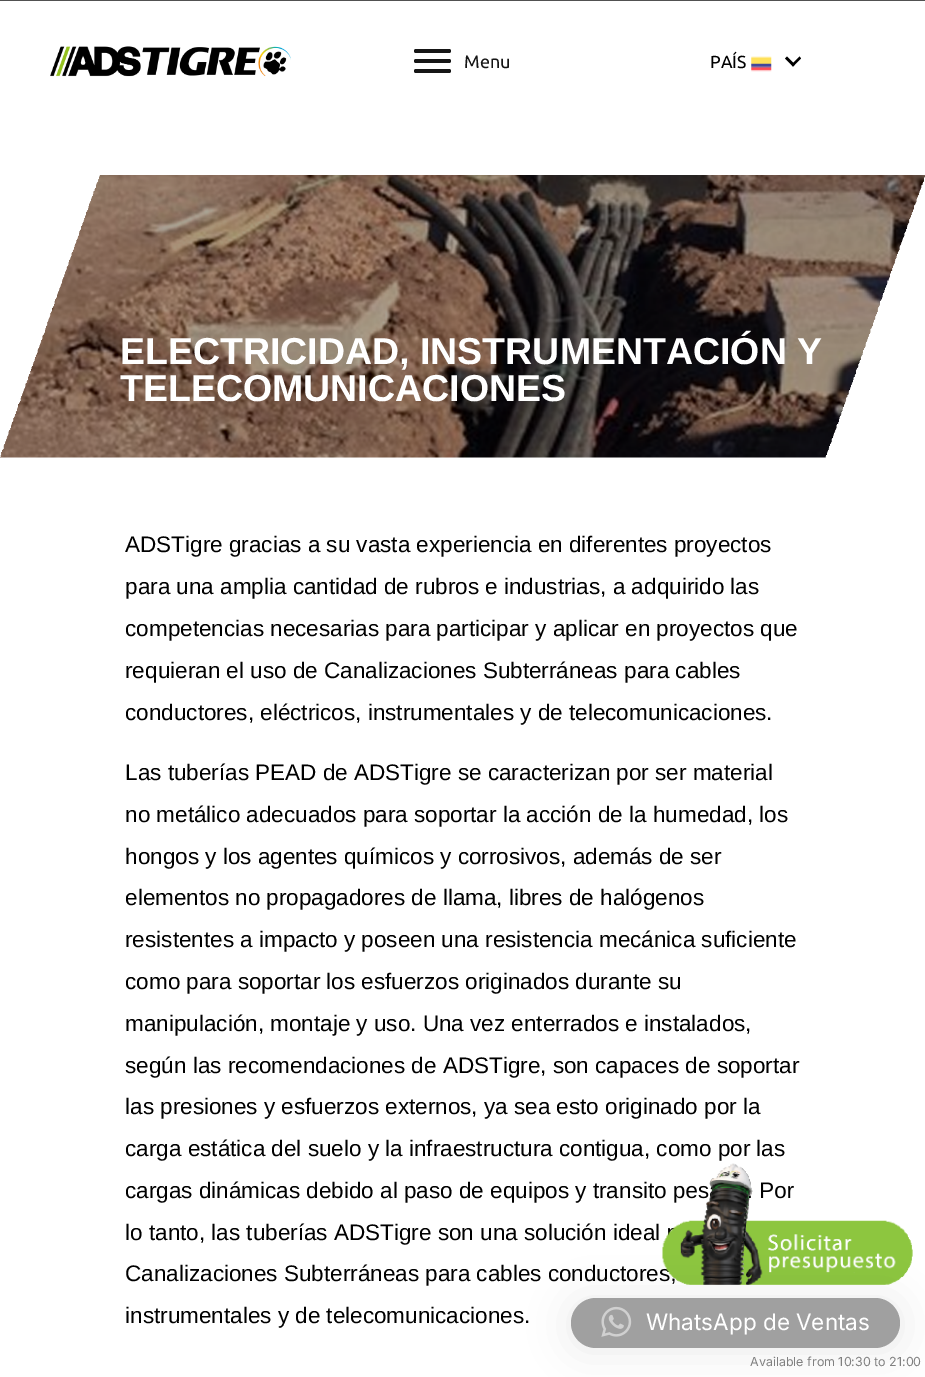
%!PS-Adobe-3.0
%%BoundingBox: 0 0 925 1377
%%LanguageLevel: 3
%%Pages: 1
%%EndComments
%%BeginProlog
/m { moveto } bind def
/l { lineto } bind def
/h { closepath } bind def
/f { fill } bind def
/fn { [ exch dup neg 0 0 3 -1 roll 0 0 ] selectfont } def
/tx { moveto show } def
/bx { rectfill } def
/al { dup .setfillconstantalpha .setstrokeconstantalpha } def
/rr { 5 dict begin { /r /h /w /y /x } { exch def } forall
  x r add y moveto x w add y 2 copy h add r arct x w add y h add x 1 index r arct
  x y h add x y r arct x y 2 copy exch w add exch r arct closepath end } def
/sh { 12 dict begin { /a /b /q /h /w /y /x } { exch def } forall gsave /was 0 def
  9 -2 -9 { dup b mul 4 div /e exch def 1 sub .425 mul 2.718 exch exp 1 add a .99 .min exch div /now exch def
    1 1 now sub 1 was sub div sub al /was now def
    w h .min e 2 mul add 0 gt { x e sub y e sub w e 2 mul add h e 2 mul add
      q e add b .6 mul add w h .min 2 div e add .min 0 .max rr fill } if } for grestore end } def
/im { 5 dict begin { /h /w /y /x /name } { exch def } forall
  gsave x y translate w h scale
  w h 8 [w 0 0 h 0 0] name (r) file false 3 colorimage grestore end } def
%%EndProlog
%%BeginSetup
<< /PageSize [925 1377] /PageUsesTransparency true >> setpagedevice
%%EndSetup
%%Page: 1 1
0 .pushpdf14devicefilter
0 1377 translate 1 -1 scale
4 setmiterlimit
1 setgray
0 0 925 1377 bx
0.318 setgray
0 0 925 1 bx
(image0.raw) 50 46 241 31 im
0.086 setgray
414 59 37 4 2 rr f
414 49 37 4 2 rr f
414 69 37 4 2 rr f
/Ubuntu-Regular 18 fn
(Menu) 464 68 tx
/Ubuntu-Regular 17.5 fn
0 setgray
(PAÍS) 710 68 tx
(image1.raw) 751 56 21 16 im
799.5 56.5 m 801 58.5 l 793 66.5 l 791.5 64.5 l h f
787 56.5 m 795 64.5 l 793 66.5 l 785 58.5 l h f
(image2.raw) 0 175 925 283 im
/LiberationSans-Bold 37.5 fn
1 setgray
(ELECTRICIDAD, INSTRUMENTACIÓN Y) 120 364 tx
(TELECOMUNICACIONES) 120 401 tx
/LiberationSans-Regular 22.5 fn
0 setgray
(ADSTigre gracias a su vasta experiencia en diferentes proyectos) 125 552 tx
(para una amplia cantidad de rubros e industrias, a adquirido las) 125 594 tx
(competencias necesarias para participar y aplicar en proyectos que) 125 636 tx
(requieran el uso de Canalizaciones Subterráneas para cables) 125 678 tx
(conductores, eléctricos, instrumentales y de telecomunicaciones.) 125 720 tx
(Las tuberías PEAD de ADSTigre se caracterizan por ser material) 125 780 tx
(no metálico adecuados para soportar la acción de la humedad, los) 125 822 tx
(hongos y los agentes químicos y corrosivos, además de ser) 125 864 tx
(elementos no propagadores de llama, libres de halógenos) 125 905 tx
(resistentes a impacto y poseen una resistencia mecánica suficiente) 125 947 tx
(como para soportar los esfuerzos originados durante su) 125 989 tx
(manipulación, montaje y uso. Una vez enterrados e instalados,) 125 1031 tx
(según las recomendaciones de ADSTigre, son capaces de soportar) 125 1073 tx
(las presiones y esfuerzos externos, ya sea esto originado por la) 125 1114 tx
(carga estática del suelo y la infraestructura contigua, como por las) 125 1156 tx
(cargas dinámicas debido al paso de equipos y transito pes) 125 1198 tx
(. Por) 747 1198 tx
(lo tanto, las tuberías ADSTigre son una solución ideal) 125 1240 tx
(Canalizaciones Subterráneas para cables conductores,) 125 1281 tx
(instrumentales y de telecomunicaciones.) 125 1323 tx
(image3.raw) 662 1163 251 122 im
571 1300 329 50 25 20 0.08 sh
0.627 setgray
571 1298 329 50 25 rr f
(image4.raw) 601 1306 31 31 im
/Inter-Regular 22.5 fn
1 setgray
(WhatsApp de Ventas) 646 1330 tx
/Inter-Regular 12.5 fn
0.502 setgray
(Available from 10:30 to 21:00) 750 1366 tx
.poppdf14devicefilter showpage
%%EOF
